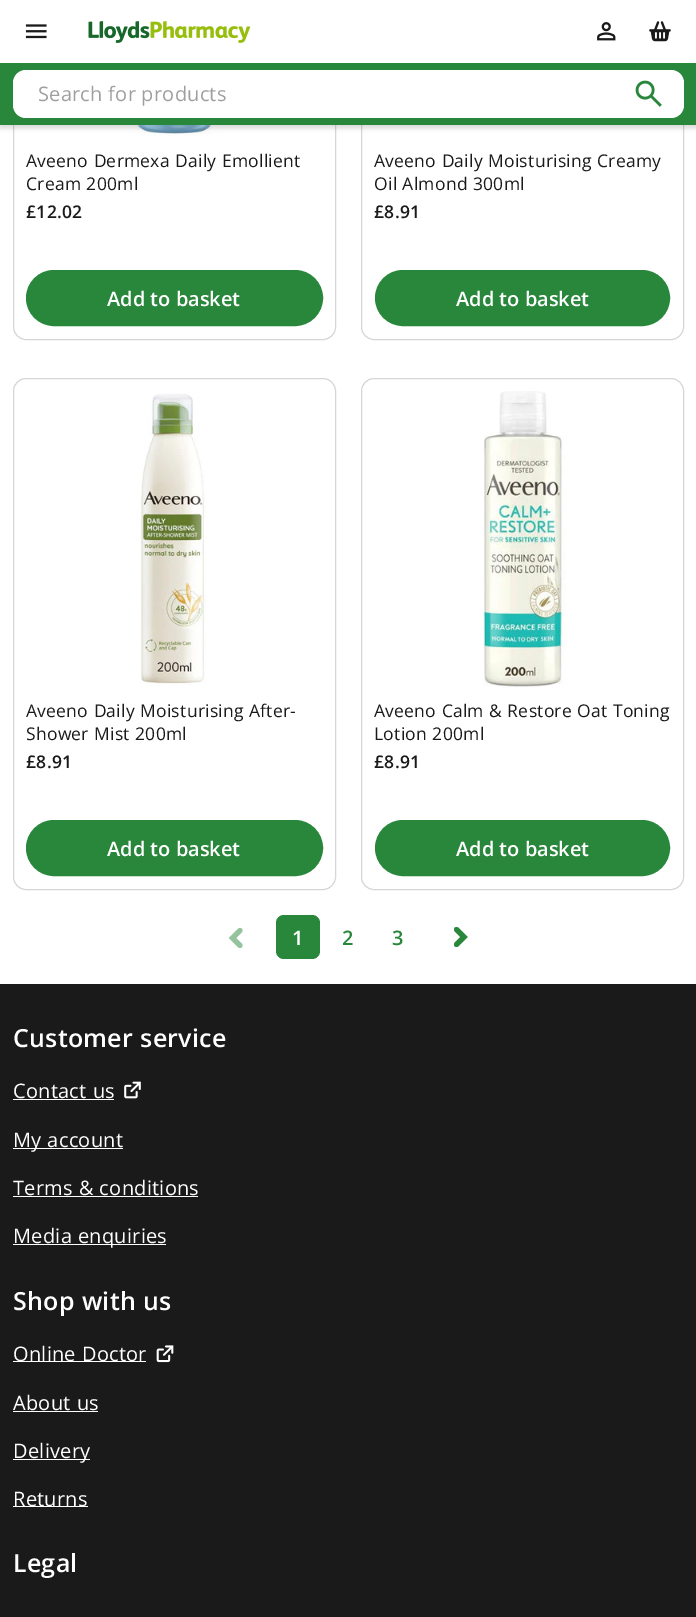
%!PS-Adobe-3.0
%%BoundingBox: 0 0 696 1617
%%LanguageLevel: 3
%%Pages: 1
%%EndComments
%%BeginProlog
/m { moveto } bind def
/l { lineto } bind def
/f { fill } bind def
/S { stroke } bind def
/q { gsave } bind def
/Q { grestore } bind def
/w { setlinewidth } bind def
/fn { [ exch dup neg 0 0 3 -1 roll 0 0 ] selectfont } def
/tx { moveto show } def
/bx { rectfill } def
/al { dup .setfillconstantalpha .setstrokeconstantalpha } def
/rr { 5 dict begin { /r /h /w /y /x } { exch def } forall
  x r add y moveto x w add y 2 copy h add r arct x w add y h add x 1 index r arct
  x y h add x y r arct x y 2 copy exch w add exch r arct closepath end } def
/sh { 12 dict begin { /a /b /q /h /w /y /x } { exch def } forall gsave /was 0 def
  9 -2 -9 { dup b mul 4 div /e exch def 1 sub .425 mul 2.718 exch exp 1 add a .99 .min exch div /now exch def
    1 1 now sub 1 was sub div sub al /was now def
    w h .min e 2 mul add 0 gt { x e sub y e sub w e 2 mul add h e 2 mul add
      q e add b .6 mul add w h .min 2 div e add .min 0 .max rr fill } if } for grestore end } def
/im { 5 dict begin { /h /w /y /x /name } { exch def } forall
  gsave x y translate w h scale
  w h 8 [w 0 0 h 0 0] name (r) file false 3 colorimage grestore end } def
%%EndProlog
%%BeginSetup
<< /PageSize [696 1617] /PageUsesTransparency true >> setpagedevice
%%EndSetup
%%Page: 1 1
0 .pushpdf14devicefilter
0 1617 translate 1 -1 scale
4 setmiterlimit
1 setgray
0 0 696 1617 bx
0.839 setgray
13.5 -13.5 322 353 12.5 rr S
(image5.raw) 131 125 88 11 im
361.5 -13.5 322 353 12.5 rr S
0 setgray
0 0 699 128 0 2.5 0.15 sh
1 setgray
0 0 696 63 bx
(image0.raw) 25 24 22 15 im
(image1.raw) 88 21 163 22 im
(image2.raw) 597 22 19 19 im
(image3.raw) 649 21 22 21 im
0.161 0.529 0.235 setrgbcolor
0 63 696 62 bx
1 setgray
13 70 671 48 13 rr f
/OpenSans-Regular 20 fn
0.624 setgray
38 101 m 0.25 0 (Search for products) ashow
(image4.raw) 635 80 27 27 im
/OpenSans-Regular 17.5 fn
0.102 setgray
26 167 m 0.5 0 32 0.25 0 (Aveeno Dermexa Daily Emollient) awidthshow
26 190 m 0.5 0 32 0.25 0 (Cream 200ml) awidthshow
/OpenSans-SemiBold 17.5 fn
26 218 m 0.25 0 (£12.02) ashow
0.161 0.529 0.235 setrgbcolor
27.5 271.5 294 53 26.5 rr q f Q
3 w
S
/OpenSans-SemiBold 20 fn
1 setgray
(Add to basket) 107 306 tx
/OpenSans-Regular 17.5 fn
0.102 setgray
374 167 m 0.5 0 32 0.25 0 (Aveeno Daily Moisturising Creamy) awidthshow
374 190 m 0.5 0 32 0.25 0 (Oil Almond 300ml) awidthshow
/OpenSans-SemiBold 17.5 fn
374 218 m 0.25 0 (£8.91) ashow
0.161 0.529 0.235 setrgbcolor
376.5 271.5 292 53 26.5 rr q f Q
S
/OpenSans-SemiBold 20 fn
1 setgray
(Add to basket) 456 306 tx
0.839 setgray
1 w
13.5 378.5 322 511 12.5 rr S
(image6.raw) 140 393 66 293 im
/OpenSans-Regular 17.5 fn
0.102 setgray
26 717 m 0.5 0 32 0.25 0 (Aveeno Daily Moisturising After-) awidthshow
26 740 m 0.5 0 32 0.25 0 (Shower Mist 200ml) awidthshow
/OpenSans-SemiBold 17.5 fn
26 768 m 0.25 0 (£8.91) ashow
0.161 0.529 0.235 setrgbcolor
27.5 821.5 294 53 26.5 rr q f Q
3 w
S
/OpenSans-SemiBold 20 fn
1 setgray
(Add to basket) 107 856 tx
0.839 setgray
1 w
361.5 378.5 322 511 12.5 rr S
(image7.raw) 483 391 84 297 im
/OpenSans-Regular 17.5 fn
0.102 setgray
374 717 m 0.5 0 32 0.25 0 (Aveeno Calm & Restore Oat Toning) awidthshow
374 740 m 0.5 0 32 0.25 0 (Lotion 200ml) awidthshow
/OpenSans-SemiBold 17.5 fn
374 768 m 0.25 0 (£8.91) ashow
0.161 0.529 0.235 setrgbcolor
376.5 821.5 292 53 26.5 rr q f Q
3 w
S
/OpenSans-SemiBold 20 fn
1 setgray
(Add to basket) 456 856 tx
0.58 0.765 0.62 setrgbcolor
5 w
1 setlinecap
240 930.5 m 232.5 938 l 240 945.5 l S
0.161 0.529 0.235 setrgbcolor
276 915 44 44 8 rr f
1 setgray
292 945 m 0.25 0 (1) ashow
0.161 0.529 0.235 setrgbcolor
342 945 m 0.25 0 (2) ashow
392 945 m 0.25 0 (3) ashow
456.5 944.5 m 464 937 l 456.5 929.5 l S
0.102 setgray
0 984 696 633 bx
/OpenSans-SemiBold 25 fn
1 setgray
13 1047 m 0.5 0 32 0.25 0 (Customer service) awidthshow
/OpenSans-Regular 20 fn
13 1098 m 0.5 0 32 0.25 0 (Contact us) awidthshow
13 1099 101 1 bx
(image8.raw) 124 1081 17 18 im
13 1148 110 1 bx
13 1147 m 0.5 0 32 0.25 0 (My account) awidthshow
13 1195 m 0.5 0 32 0.25 0 (Terms & conditions) awidthshow
13 1196 185 1 bx
13 1244 153 1 bx
13 1243 m 0.5 0 32 0.25 0 (Media enquiries) awidthshow
/OpenSans-SemiBold 25 fn
13 1310 m 0.5 0 32 0.25 0 (Shop with us) awidthshow
13 1361 133 1 bx
/OpenSans-Regular 20 fn
13 1361 m 0.5 0 32 0.25 0 (Online Doctor) awidthshow
(image9.raw) 156 1345 18 18 im
13 1410 m 0.5 0 32 0.25 0 (About us) awidthshow
13 1411 85 1 bx
13 1459 77 1 bx
13 1458 m 0.25 0 (Delivery) ashow
13 1506 75 1 bx
13 1506 m 0.25 0 (Returns) ashow
/OpenSans-SemiBold 25 fn
13 1572 m 0.25 0 (Legal) ashow
.poppdf14devicefilter showpage
%%EOF
